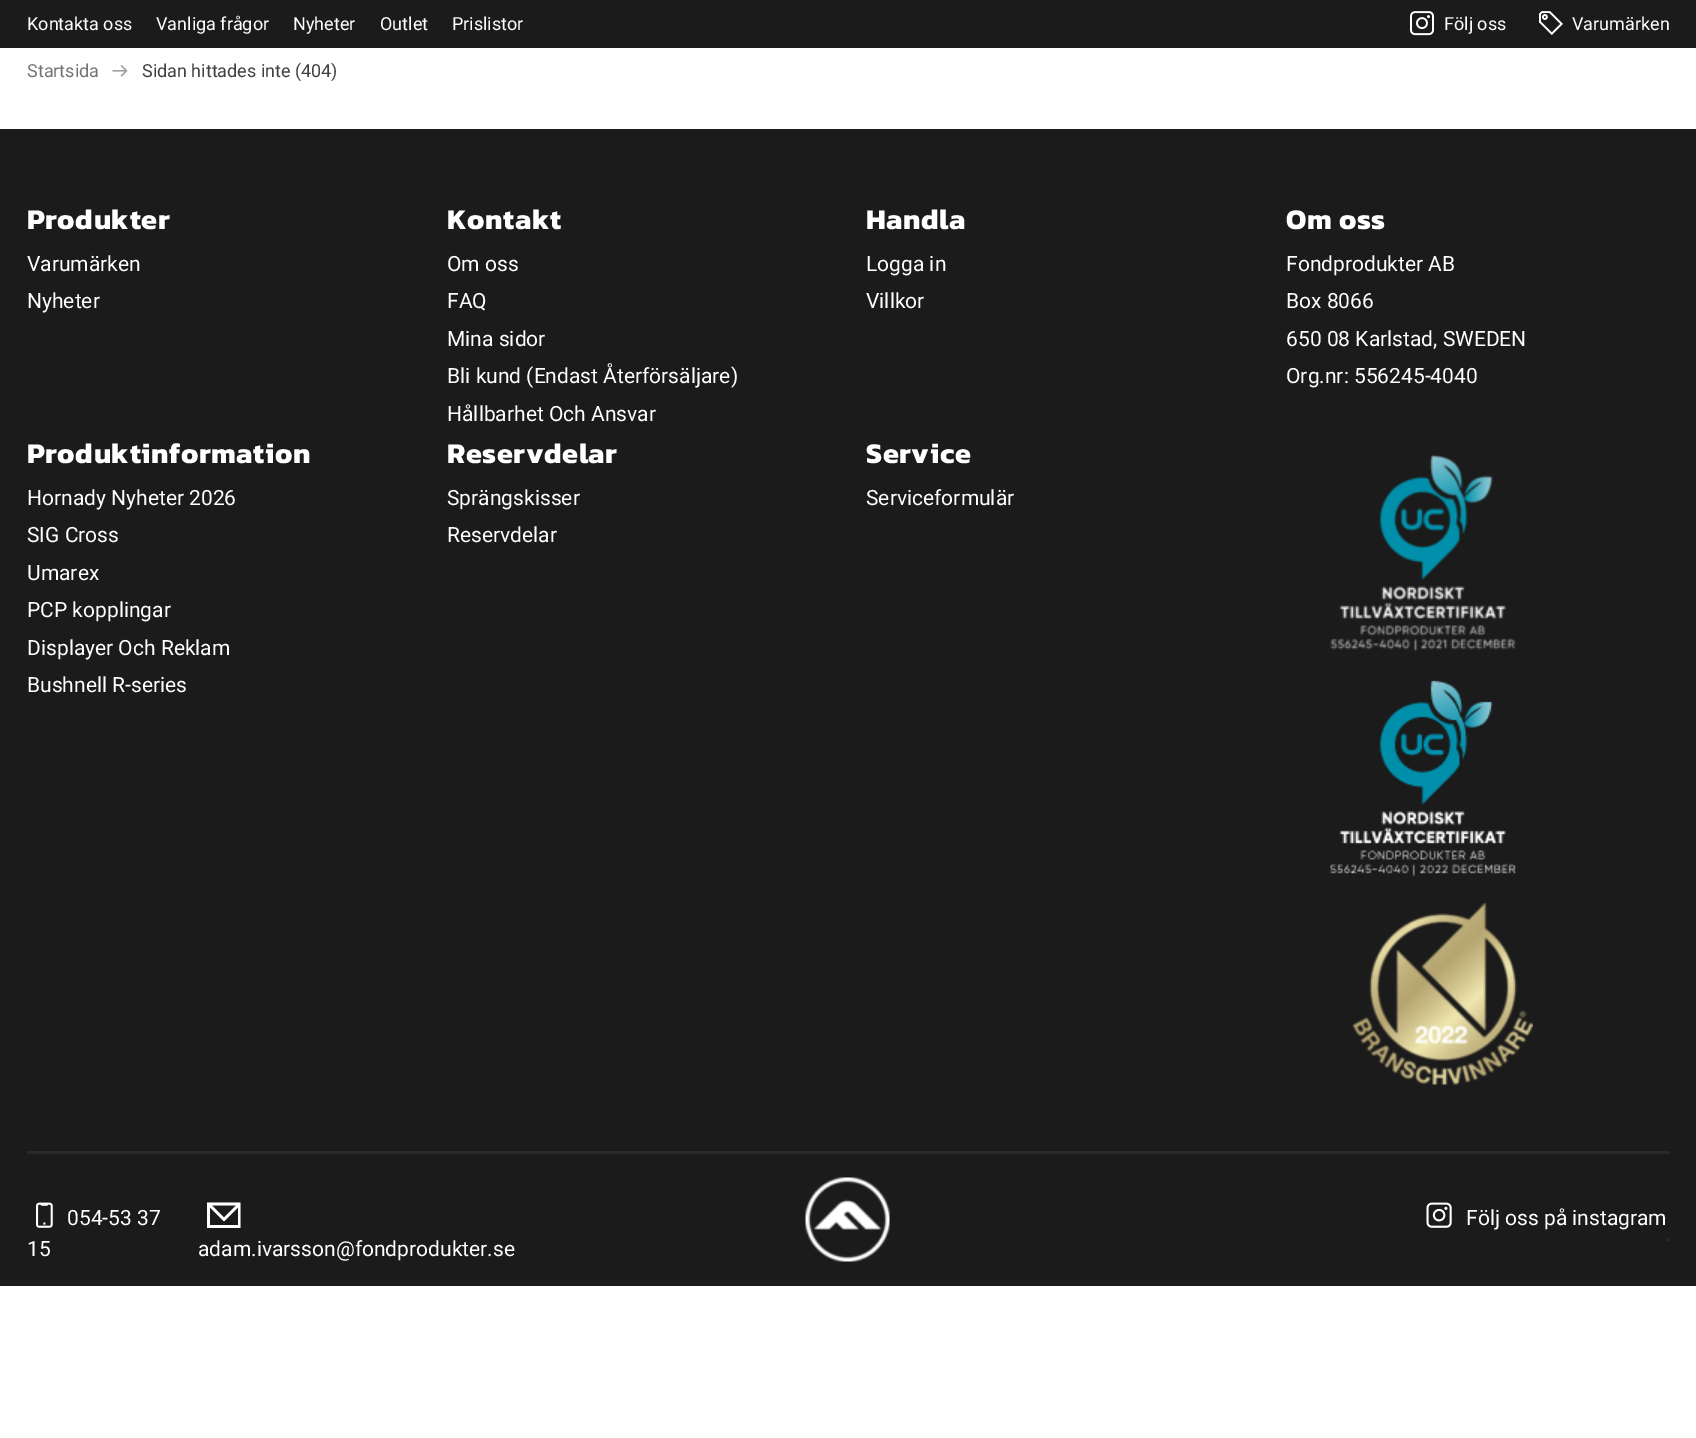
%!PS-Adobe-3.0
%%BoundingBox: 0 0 1696 1438
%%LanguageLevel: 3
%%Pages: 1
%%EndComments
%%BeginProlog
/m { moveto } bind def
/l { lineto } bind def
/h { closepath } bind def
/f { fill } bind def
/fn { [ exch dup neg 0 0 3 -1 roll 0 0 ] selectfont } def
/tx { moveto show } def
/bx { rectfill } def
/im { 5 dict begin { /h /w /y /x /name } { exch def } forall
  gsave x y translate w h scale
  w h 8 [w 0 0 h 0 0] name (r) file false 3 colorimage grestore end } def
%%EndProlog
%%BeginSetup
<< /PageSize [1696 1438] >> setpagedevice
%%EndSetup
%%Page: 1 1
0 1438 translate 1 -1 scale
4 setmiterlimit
1 setgray
0 0 1696 1438 bx
0.106 setgray
0 0 1696 48 bx
/Roboto-Regular 18 fn
1 setgray
(Kontakta oss) 27 30 tx
(Vanliga frågor) 156 30 tx
(Nyheter) 293 30 tx
(Outlet) 380 30 tx
(Prislistor) 452 30 tx
(image0.raw) 1410 11 24 25 im
(Följ oss) 1444 30 tx
(image1.raw) 1539 11 24 24 im
(Varumärken) 1572 30 tx
0.459 setgray
(Startsida) 27 77 tx
(image2.raw) 112 65 16 12 im
0.259 setgray
(Sidan hittades inte \(404\)) 142 77 tx
0.106 setgray
0 129 1696 1157 bx
/Kanit-Bold 28.75 fn
1 setgray
27 229 m 0.6 0 (Produkter) ashow
/Roboto-Regular 21 fn
(Varumärken) 27 271 tx
(Nyheter) 27 308 tx
/Kanit-Bold 28.75 fn
447 229 m 0.6 0 (Kontakt) ashow
/Roboto-Regular 21 fn
(Om oss) 447 271 tx
(FAQ) 447 308 tx
(Mina sidor) 447 346 tx
(Bli kund \(Endast Återförsäljare\)) 447 383 tx
(Hållbarhet Och Ansvar) 447 421 tx
/Kanit-Bold 28.75 fn
866 229 m 0.6 0 (Handla) ashow
/Roboto-Regular 21 fn
(Logga in) 866 271 tx
(Villkor) 866 308 tx
/Kanit-Bold 28.75 fn
1286 229 m 0.6 0 (Om oss) ashow
/Roboto-Regular 21 fn
(Fondprodukter AB) 1286 271 tx
(Box 8066) 1286 308 tx
(650 08 Karlstad, SWEDEN) 1286 346 tx
(Org.nr: 556245-4040) 1286 383 tx
/Kanit-Bold 28.75 fn
27 463 m 0.6 0 (Produktinformation) ashow
/Roboto-Regular 21 fn
(Hornady Nyheter 2026) 27 505 tx
(SIG Cross) 27 542 tx
(Umarex) 27 580 tx
(PCP kopplingar) 27 617 tx
(Displayer Och Reklam) 27 655 tx
(Bushnell R-series) 27 692 tx
/Kanit-Bold 28.75 fn
447 463 m 0.6 0 (Reservdelar) ashow
/Roboto-Regular 21 fn
(Sprängskisser) 447 505 tx
(Reservdelar) 447 542 tx
/Kanit-Bold 28.75 fn
866 463 m 0.6 0 (Service) ashow
/Roboto-Regular 21 fn
(Serviceformulär) 866 505 tx
(image3.raw) 1330 454 186 198 im
(image4.raw) 1330 680 187 197 im
(image5.raw) 1353 903 180 182 im
0.161 setgray
27 1151 1643 3 bx
(image6.raw) 36 1202 17 26 im
1 setgray
(054-53 37) 67 1225 tx
(15) 27 1256 tx
207 1202.5 m 207 1228 l 240.5 1228 l 240.5 1202.5 l h 212 1205.5 m 236 1205.5 l 224 1217.5 l h 210 1207.5 m 224 1221.5 l 238 1207.5 l 238 1225 l 210 1225 l h f
(adam.ivarsson@fondprodukter.se) 198 1256 tx
(image7.raw) 805 1177 85 85 im
(image8.raw) 1426 1202 26 26 im
(Följ oss på instagram) 1466 1225 tx
0.161 setgray
1667 1238 3 3 bx
showpage
%%EOF
